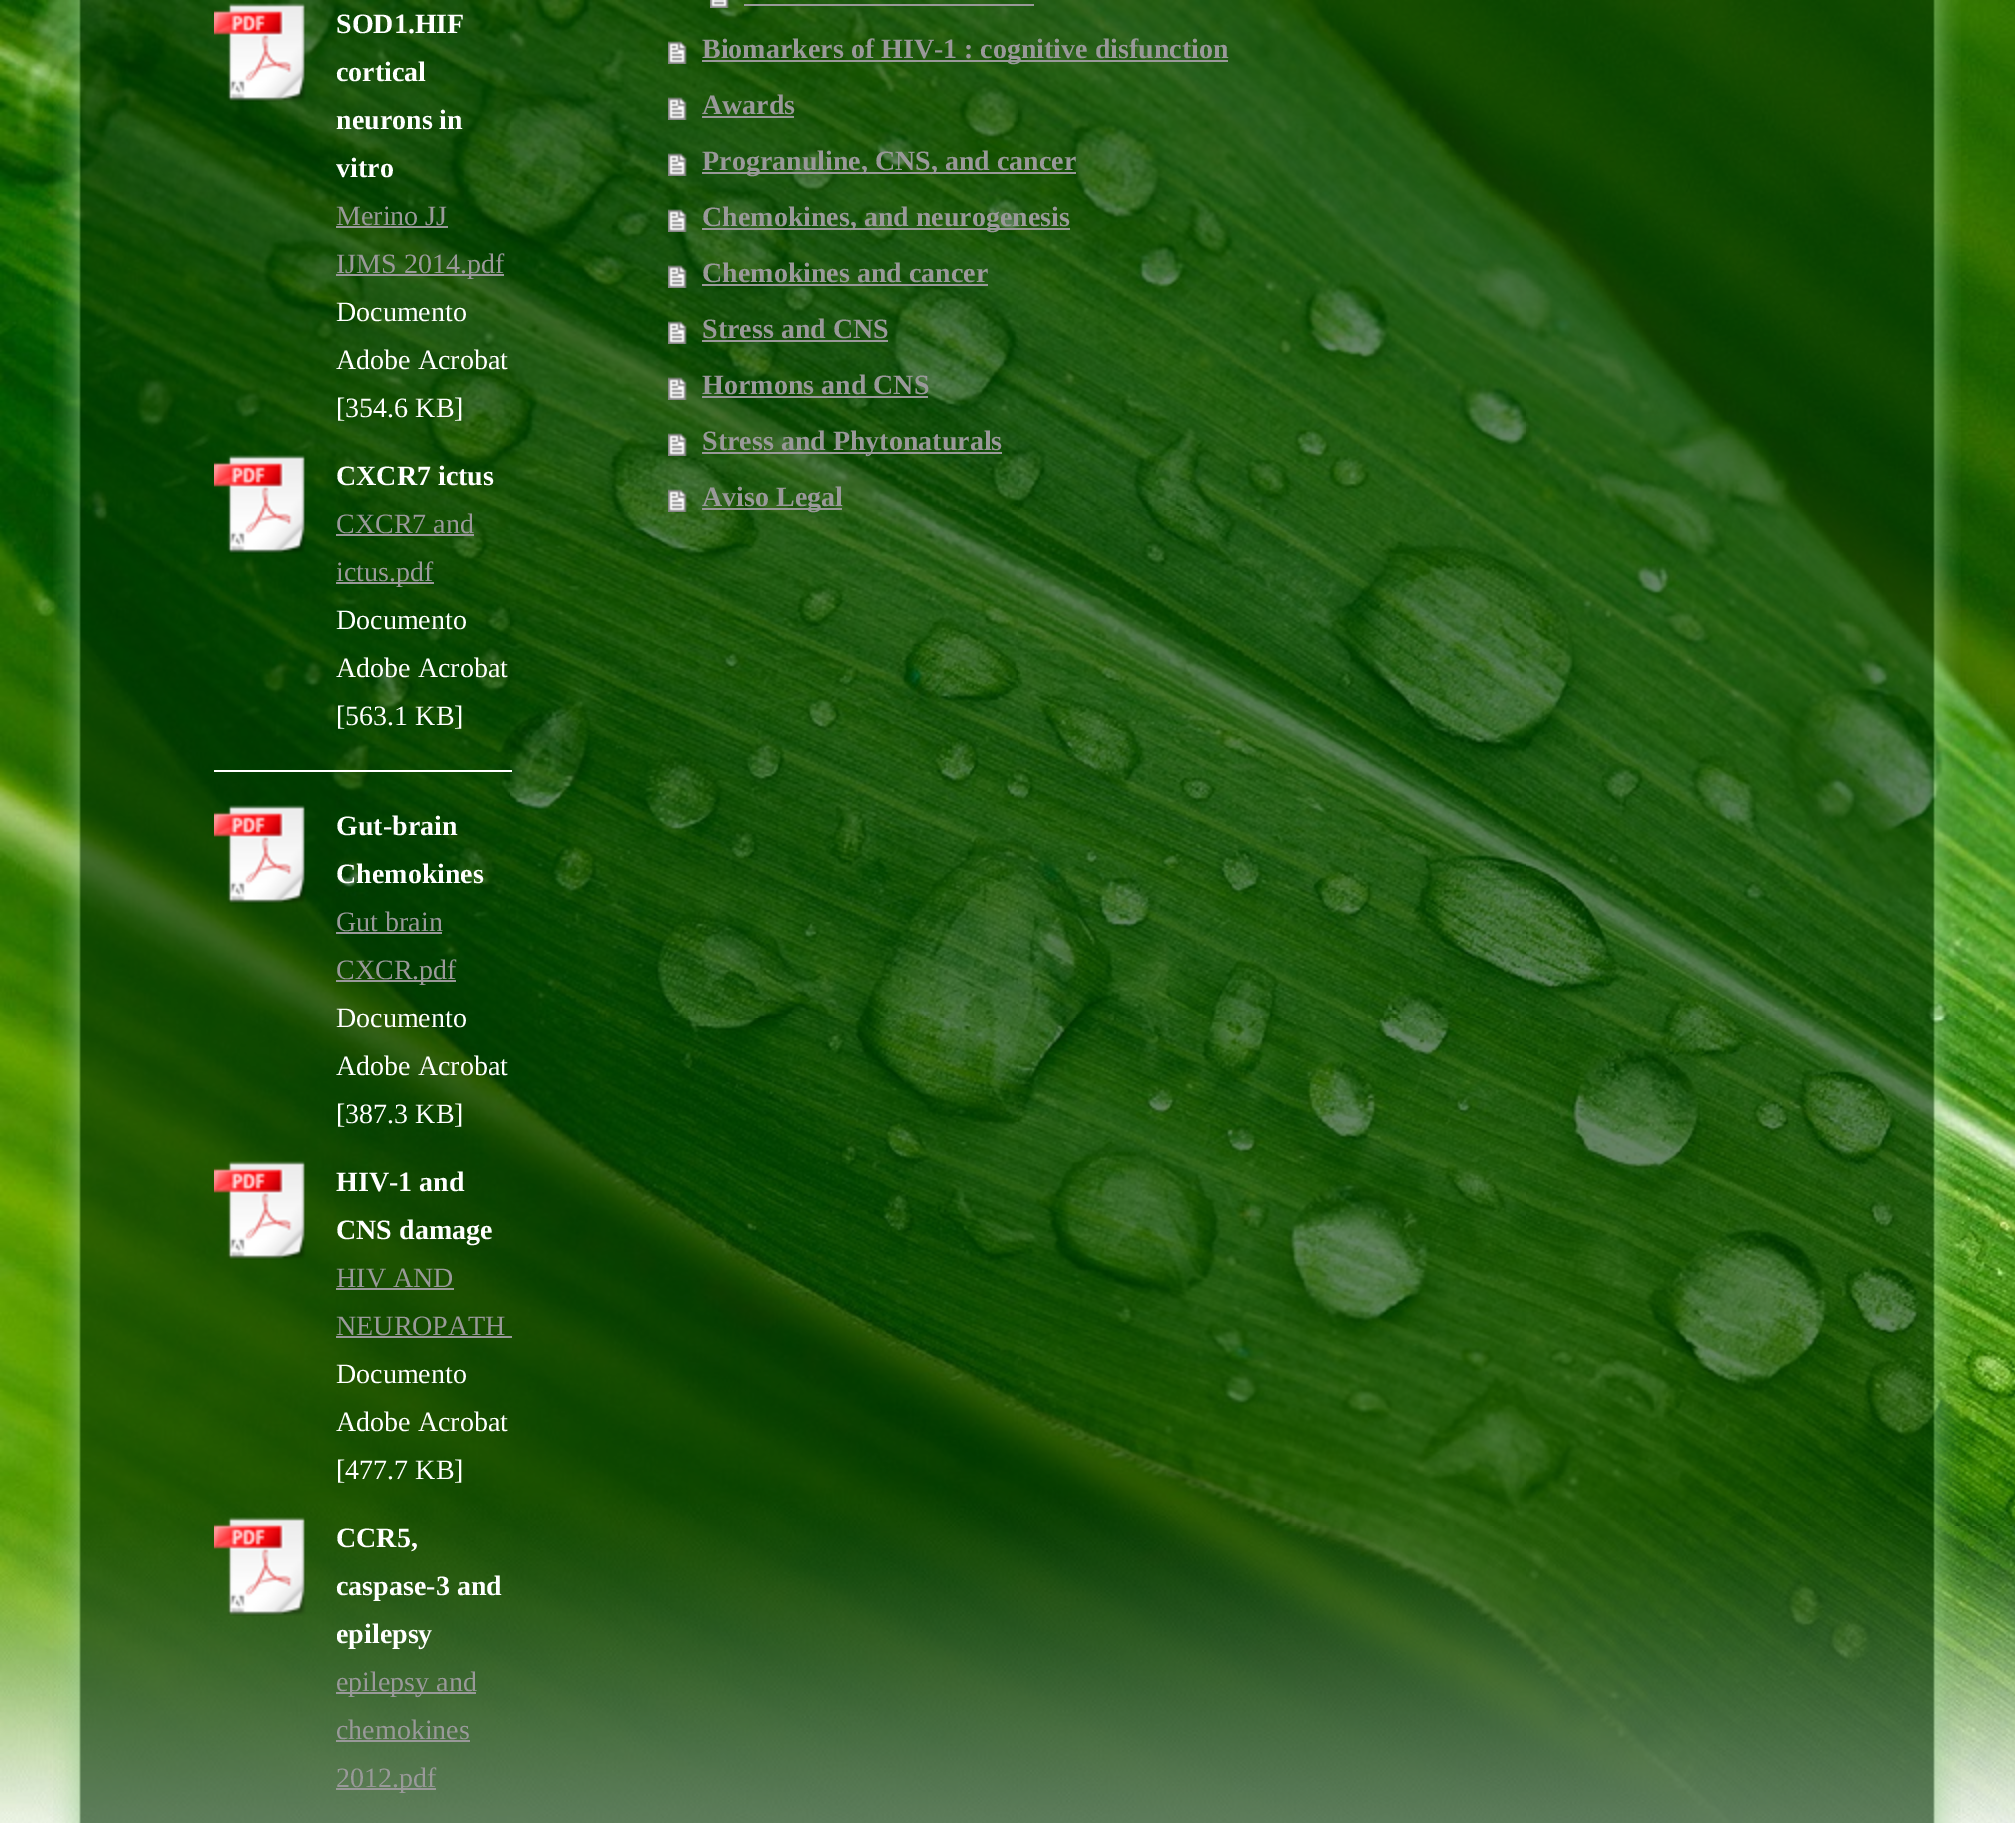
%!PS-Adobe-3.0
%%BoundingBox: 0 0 2015 1823
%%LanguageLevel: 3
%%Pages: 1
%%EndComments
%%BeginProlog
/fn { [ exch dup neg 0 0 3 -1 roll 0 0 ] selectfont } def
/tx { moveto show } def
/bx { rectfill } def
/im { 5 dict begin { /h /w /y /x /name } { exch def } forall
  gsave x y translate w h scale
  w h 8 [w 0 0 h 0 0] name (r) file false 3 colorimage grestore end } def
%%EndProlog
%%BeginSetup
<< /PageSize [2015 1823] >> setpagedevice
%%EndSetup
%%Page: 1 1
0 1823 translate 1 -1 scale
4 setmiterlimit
1 setgray
0 0 2015 1823 bx
(image0.raw) 0 0 2015 1823 im
(image1.raw) 53 0 1908 1823 im
(image2.raw) 214 3 92 99 im
/LiberationSerif-Bold 28 fn
(SOD1.HIF) 336 33 tx
(cortical) 336 81 tx
(neurons in) 336 129 tx
(vitro) 336 177 tx
/LiberationSerif-Regular 28 fn
0.6 setgray
(Merino JJ) 336 225 tx
336 226 112 2 bx
336 274 168 2 bx
(IJMS 2014.pdf) 336 273 tx
1 setgray
(Documento) 336 321 tx
(Adobe Acrobat) 336 369 tx
([354.6 KB]) 336 417 tx
(image3.raw) 214 455 92 99 im
/LiberationSerif-Bold 28 fn
(CXCR7 ictus) 336 485 tx
/LiberationSerif-Regular 28 fn
0.6 setgray
(CXCR7 and) 336 533 tx
336 534 138 2 bx
336 582 98 2 bx
(ictus.pdf) 336 581 tx
1 setgray
(Documento) 336 629 tx
(Adobe Acrobat) 336 677 tx
([563.1 KB]) 336 725 tx
214 770 298 2 bx
(image4.raw) 214 805 92 99 im
/LiberationSerif-Bold 28 fn
(Gut-brain) 336 835 tx
(Chemokines) 336 883 tx
/LiberationSerif-Regular 28 fn
0.6 setgray
(Gut brain) 336 931 tx
336 932 106 2 bx
336 980 120 2 bx
(CXCR.pdf) 336 979 tx
1 setgray
(Documento) 336 1027 tx
(Adobe Acrobat) 336 1075 tx
([387.3 KB]) 336 1123 tx
(image5.raw) 214 1161 92 99 im
/LiberationSerif-Bold 28 fn
(HIV-1 and) 336 1191 tx
(CNS damage) 336 1239 tx
/LiberationSerif-Regular 28 fn
0.6 setgray
(HIV AND) 336 1287 tx
336 1288 118 2 bx
(NEUROPATH) 336 1335 tx
336 1336 176 2 bx
1 setgray
(Documento) 336 1383 tx
(Adobe Acrobat) 336 1431 tx
([477.7 KB]) 336 1479 tx
(image6.raw) 214 1517 92 99 im
/LiberationSerif-Bold 28 fn
(CCR5,) 336 1547 tx
(caspase-3 and) 336 1595 tx
(epilepsy) 336 1643 tx
0.6 setgray
336 1692 140 2 bx
/LiberationSerif-Regular 28 fn
(epilepsy and) 336 1691 tx
(chemokines) 336 1739 tx
336 1740 134 2 bx
336 1788 100 2 bx
(2012.pdf) 336 1787 tx
(image7.raw) 710 0 19 8 im
744 4 290 2 bx
(image8.raw) 668 41 19 23 im
702 60 526 2 bx
/LiberationSerif-Bold 28 fn
(Biomarkers of HIV-1 : cognitive disfunction) 702 58 tx
(image9.raw) 668 97 19 23 im
(Awards) 702 114 tx
702 116 92 2 bx
(image10.raw) 668 153 19 23 im
702 172 374 2 bx
(Progranuline, CNS, and cancer) 702 170 tx
(image11.raw) 668 209 19 23 im
702 228 368 2 bx
(Chemokines, and neurogenesis) 702 226 tx
(image12.raw) 668 265 19 23 im
(Chemokines and cancer) 702 282 tx
702 284 286 2 bx
(image13.raw) 668 321 19 23 im
(Stress and CNS) 702 338 tx
702 340 186 2 bx
(image14.raw) 668 377 19 23 im
(Hormons and CNS) 702 394 tx
702 396 226 2 bx
(image15.raw) 668 433 19 23 im
702 452 300 2 bx
(Stress and Phytonaturals) 702 450 tx
(image16.raw) 668 489 19 23 im
702 508 140 2 bx
(Aviso Legal) 702 506 tx
showpage
%%EOF
